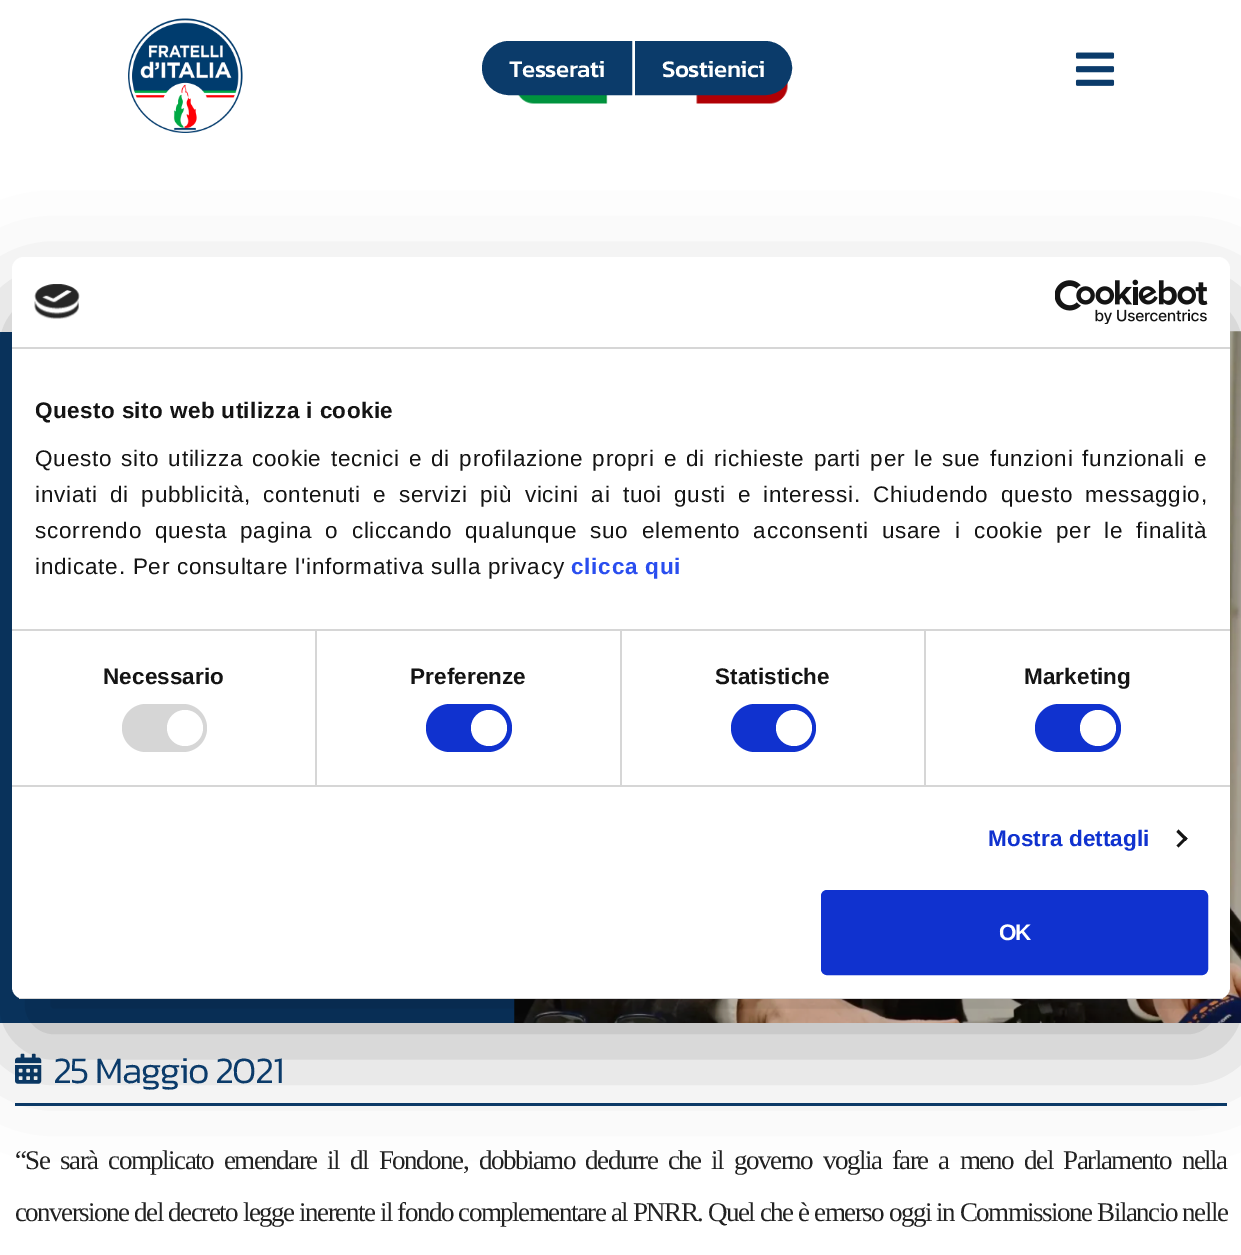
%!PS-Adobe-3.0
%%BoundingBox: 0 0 1241 1255
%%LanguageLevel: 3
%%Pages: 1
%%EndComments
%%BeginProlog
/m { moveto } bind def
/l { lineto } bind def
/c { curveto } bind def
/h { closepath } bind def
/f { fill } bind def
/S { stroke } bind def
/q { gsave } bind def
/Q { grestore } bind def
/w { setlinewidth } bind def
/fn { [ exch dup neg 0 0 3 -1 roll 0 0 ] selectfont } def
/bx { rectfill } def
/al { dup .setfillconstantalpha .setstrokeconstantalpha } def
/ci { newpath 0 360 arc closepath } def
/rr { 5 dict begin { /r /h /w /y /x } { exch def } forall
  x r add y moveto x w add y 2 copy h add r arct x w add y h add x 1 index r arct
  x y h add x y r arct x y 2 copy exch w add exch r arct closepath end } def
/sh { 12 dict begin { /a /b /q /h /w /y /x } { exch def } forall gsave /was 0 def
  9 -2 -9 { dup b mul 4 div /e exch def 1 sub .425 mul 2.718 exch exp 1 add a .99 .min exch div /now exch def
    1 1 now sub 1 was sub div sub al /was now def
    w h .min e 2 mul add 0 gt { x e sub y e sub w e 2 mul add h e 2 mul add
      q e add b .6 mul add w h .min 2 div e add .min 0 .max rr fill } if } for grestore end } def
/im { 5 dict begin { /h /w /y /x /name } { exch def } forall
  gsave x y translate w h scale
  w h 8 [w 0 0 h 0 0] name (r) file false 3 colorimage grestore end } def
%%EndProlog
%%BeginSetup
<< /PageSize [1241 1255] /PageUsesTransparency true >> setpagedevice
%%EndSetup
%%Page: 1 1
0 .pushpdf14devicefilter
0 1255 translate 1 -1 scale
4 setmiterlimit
1 setgray
0 0 1241 1255 bx
(image0.raw) 128 18 115 115 im
(image1.raw) 518 82 270 22 im
0.043 0.231 0.416 setrgbcolor
509 42.5 m 630.5 42.5 l 630.5 93.5 l 509 93.5 l 495 93.5 483.5 82 483.5 68 c 483.5 54 495 42.5 509 42.5 c h q f Q
3 w
S
/Kanit-Medium 24 fn
1 setgray
509 77 m -0.5 0 (Tesserati) ashow
0.043 0.231 0.416 setrgbcolor
636.5 42.5 m 765 42.5 l 779 42.5 790.5 54 790.5 68 c 790.5 82 779 93.5 765 93.5 c 636.5 93.5 l h q f Q
S
1 setgray
662 77 m -0.5 0 (Sostienici) ashow
(image2.raw) 1075 52 40 34 im
0.043 0.231 0.416 setrgbcolor
0 332 515 691 bx
(image5.raw) 514 331 727 692 im
(image6.raw) 514 331 727 692 im
15 1103 1212 3 bx
(image7.raw) 15 1053 27 31 im
0 setgray
12 305 1218 742 12 51 0.3 sh
1 setgray
12 257 1218 742 12 rr f
0.839 setgray
12 347 1218 2 bx
(image3.raw) 34 284 46 35 im
(image4.raw) 1055 279 153 45 im
315 630 2 155 bx
620 630 2 155 bx
924 630 2 155 bx
12 629 1218 2 bx
/LiberationSans-Bold 22.5 fn
0.078 setgray
35 418 m 0.4 0 (Questo sito web utilizza i cookie) ashow
/LiberationSans-Regular 22.5 fn
35 466 m 2.1 0 32 0.75 0 (Questo sito utilizza cookie tecnici e di profilazione propri e di richieste parti per le sue funzioni funzionali e) awidthshow
35 502 m 5.25 0 32 0.75 0 (inviati di pubblicità, contenuti e servizi più vicini ai tuoi gusti e interessi.) awidthshow
873 502 m 5.25 0 32 0.75 0 (Chiudendo questo messaggio,) awidthshow
35 538 m 6.1 0 32 0.75 0 (scorrendo questa pagina o cliccando qualunque suo elemento acconsenti usare i cookie per le finalità) awidthshow
35 574 m 0.75 0 (indicate. Per consultare l'informativa sulla privacy) ashow
/LiberationSans-Bold 22.5 fn
0.165 0.306 0.937 setrgbcolor
571 574 m 0.75 0 (clicca qui) ashow
0.839 setgray
12 785 1218 2 bx
0.078 setgray
103 684 m 0.1 0 (Necessario) ashow
0.839 setgray
122 704 85 48 24 rr f
1 setgray
185 728 18 ci f
0.078 setgray
410 684 m 0.1 0 (Preferenze) ashow
0.063 0.196 0.812 setrgbcolor
426 704 86 48 24 rr f
1 setgray
489 728 18 ci f
0.078 setgray
715 684 m 0.1 0 (Statistiche) ashow
0.063 0.196 0.812 setrgbcolor
731 704 85 48 24 rr f
1 setgray
794 728 18 ci f
0.078 setgray
1024 684 m 0.1 0 (Marketing) ashow
0.063 0.196 0.812 setrgbcolor
1035 704 86 48 24 rr f
1 setgray
1098 728 18 ci f
0.063 0.196 0.812 setrgbcolor
988 846 m 0.1 0 (Mostra dettagli) ashow
0.078 setgray
1178.5 829.5 m 1187.5 838.5 l 1185.5 841 l 1176.5 832 l h f
1185.5 836.5 m 1187.5 838.5 l 1178.5 847.5 l 1176.5 845.5 l h f
q
12 257 1218 742 12 rr clip newpath
0.839 setgray
12 998 1218 1 bx
Q
0.063 0.196 0.812 setrgbcolor
822.5 891.5 384 82 4.5 rr q f Q
S
1 setgray
999 940 m -1.5 0 (OK) ashow
/Kanit-Light 37.5 fn
0.043 0.231 0.416 setrgbcolor
53 1083 m -1.5 0 (25 Maggio 2021) ashow
/LiberationSerif-Regular 27 fn
0.133 setgray
15 1169 m 5.4 0 32 -1.5 0 (“Se sarà complicato emendare il dl Fondone, dobbiamo dedurre che il governo voglia fare a meno del Parlamento nella) awidthshow
15 1221 m 0.25 0 32 -1.5 0 (conversione del decreto legge inerente il fondo complementare al PNRR. Quel che è emerso oggi in Commissione Bilancio nelle) awidthshow
.poppdf14devicefilter showpage
%%EOF
